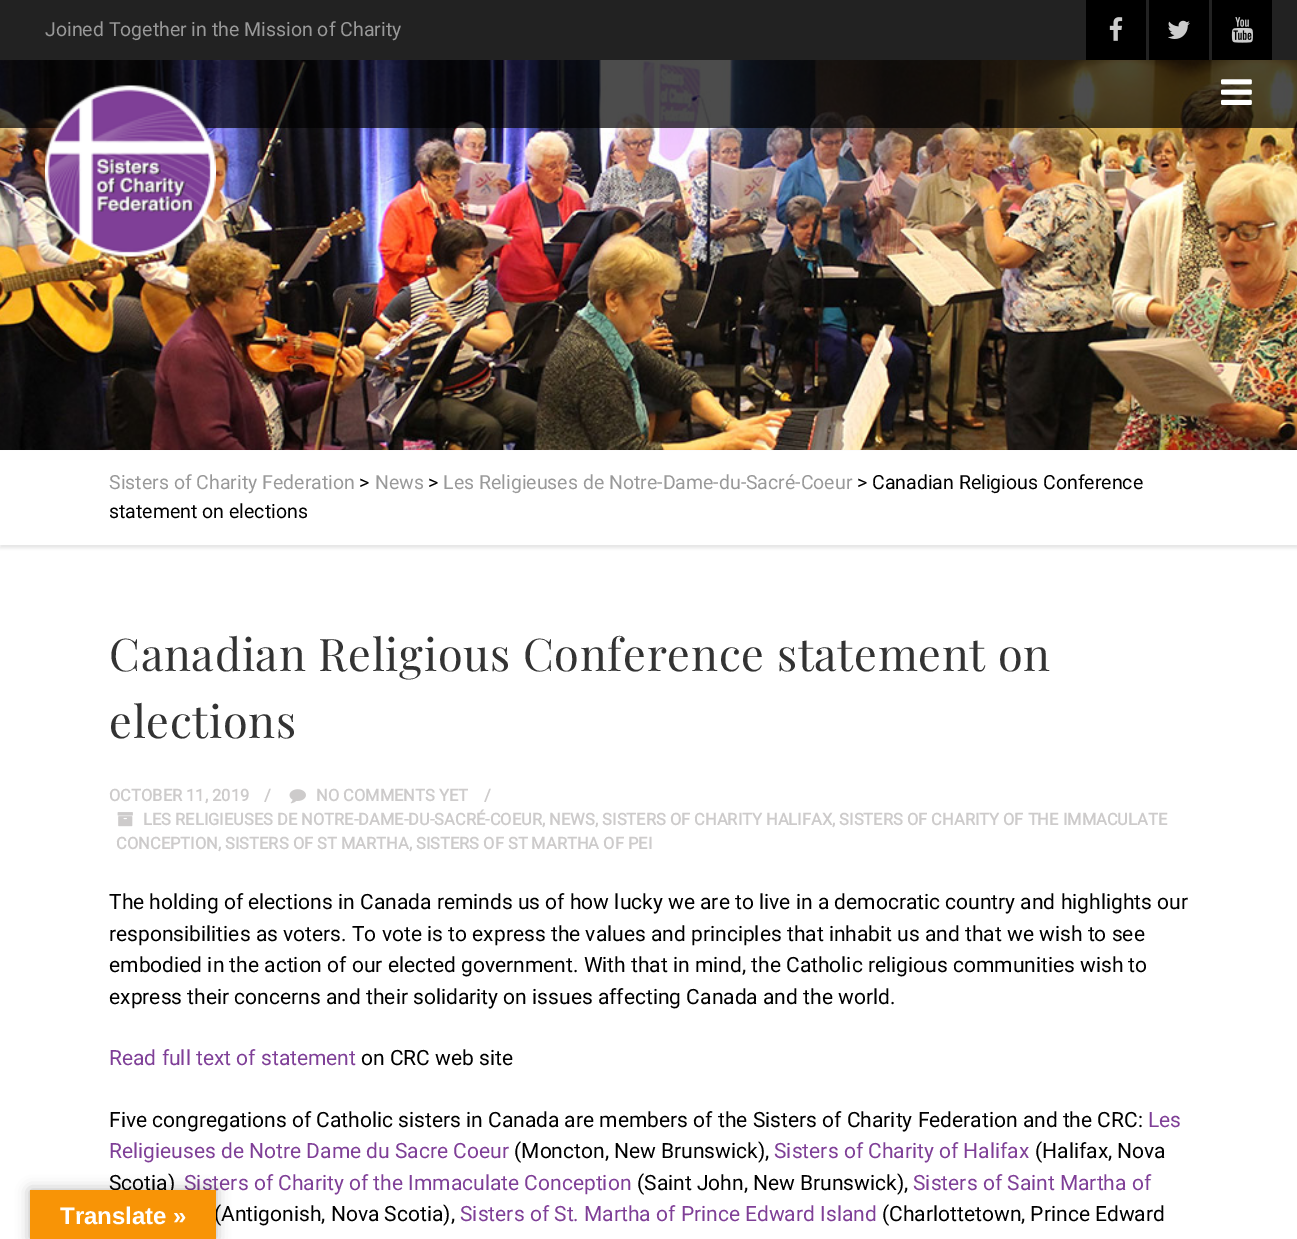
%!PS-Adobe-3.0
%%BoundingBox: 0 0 1297 1239
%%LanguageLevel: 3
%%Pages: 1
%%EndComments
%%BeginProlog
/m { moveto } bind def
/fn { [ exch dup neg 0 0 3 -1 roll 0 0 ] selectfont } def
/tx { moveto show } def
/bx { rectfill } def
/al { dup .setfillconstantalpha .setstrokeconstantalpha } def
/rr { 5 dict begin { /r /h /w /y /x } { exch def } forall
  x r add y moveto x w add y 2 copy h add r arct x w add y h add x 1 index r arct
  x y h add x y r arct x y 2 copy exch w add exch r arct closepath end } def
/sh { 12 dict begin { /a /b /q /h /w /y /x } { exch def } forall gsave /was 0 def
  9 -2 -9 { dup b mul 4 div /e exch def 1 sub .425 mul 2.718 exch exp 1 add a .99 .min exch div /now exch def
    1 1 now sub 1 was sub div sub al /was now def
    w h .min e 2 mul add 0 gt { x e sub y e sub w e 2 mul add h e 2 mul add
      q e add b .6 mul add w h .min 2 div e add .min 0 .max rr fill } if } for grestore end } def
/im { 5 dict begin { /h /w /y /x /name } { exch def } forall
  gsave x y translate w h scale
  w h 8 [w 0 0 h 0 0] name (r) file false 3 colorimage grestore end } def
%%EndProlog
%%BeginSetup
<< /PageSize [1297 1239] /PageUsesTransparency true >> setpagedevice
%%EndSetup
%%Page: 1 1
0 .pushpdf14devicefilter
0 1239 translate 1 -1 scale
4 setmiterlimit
1 setgray
0 0 1297 1239 bx
0.133 setgray
0 0 1297 60 bx
/Roboto-Regular 19.5 fn
0.6 setgray
(Joined Together in the Mission of Charity) 45 36 tx
0 setgray
1086 0 60 60 bx
(image0.raw) 1109 17 14 24 im
1149 0 60 60 bx
(image1.raw) 1168 20 22 19 im
1212 0 60 60 bx
(image2.raw) 1231 17 22 26 im
0.902 setgray
0 453 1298 95 0 1.5 1 sh
(image3.raw) 0 60 1297 390 im
0.7 al
0 setgray
0 60 1297 68 bx
1 al
(image4.raw) 45 85 171 172 im
(image5.raw) 1221 79 31 26 im
1 setgray
0 451 1297 94 bx
0.6 setgray
(Sisters of Charity Federation) 109 489 tx
0 setgray
(>) 359 489 tx
0.6 setgray
(News) 375 489 tx
0 setgray
(>) 428 489 tx
0.6 setgray
(Les Religieuses de Notre-Dame-du-Sacré-Coeur) 443 489 tx
0 setgray
(> Canadian Religious Conference) 857 489 tx
(statement on elections) 109 518 tx
/PlayfairDisplay-Regular 45 fn
0.2 setgray
109 671 m 0.75 0 (Canadian Religious Conference statement on) ashow
109 738 m 0.75 0 (elections) ashow
/Roboto-Bold 16.5 fn
0.804 0.796 0.796 setrgbcolor
(OCTOBER 11, 2019) 109 801 tx
(/) 264 801 tx
(image6.raw) 289 789 17 15 im
(NO COMMENTS YET) 316 801 tx
(/) 484 801 tx
(image7.raw) 117 812 16 15 im
(LES RELIGIEUSES DE NOTRE-DAME-DU-SACRÉ-COEUR, NEWS, SISTERS OF CHARITY HALIFAX, SISTERS OF CHARITY OF THE IMMACULATE) 143 825 tx
(CONCEPTION, SISTERS OF ST MARTHA, SISTERS OF ST MARTHA OF PEI) 116 849 tx
/Roboto-Regular 21 fn
0 setgray
(The holding of elections in Canada reminds us of how lucky we are to live in a democratic country and highlights our) 109 909 tx
(responsibilities as voters. To vote is to express the values and principles that inhabit us and that we wish to see) 109 941 tx
(embodied in the action of our elected government. With that in mind, the Catholic religious communities wish to) 109 972 tx
(express their concerns and their solidarity on issues affecting Canada and the world.) 109 1004 tx
0.498 0.247 0.592 setrgbcolor
(Read full text of statement) 109 1065 tx
0 setgray
(on CRC web site) 361 1065 tx
(Five congregations of Catholic sisters in Canada are members of the Sisters of Charity Federation and the CRC:) 109 1127 tx
0.498 0.247 0.592 setrgbcolor
(Les) 1148 1127 tx
(Religieuses de Notre Dame du Sacre Coeur) 109 1158 tx
0 setgray
(\(Moncton, New Brunswick\),) 514 1158 tx
0.498 0.247 0.592 setrgbcolor
(Sisters of Charity of Halifax) 774 1158 tx
0 setgray
(\(Halifax, Nova) 1035 1158 tx
(Scotia\)) 109 1190 tx
0.498 0.247 0.592 setrgbcolor
(Sisters of Charity of the Immaculate Conception) 184 1190 tx
0 setgray
(\(Saint John, New Brunswick\),) 637 1190 tx
0.498 0.247 0.592 setrgbcolor
(Sisters of Saint Martha of) 913 1190 tx
0 setgray
(\(Antigonish, Nova Scotia\),) 214 1221 tx
0.498 0.247 0.592 setrgbcolor
(Sisters of St. Martha of Prince Edward Island) 460 1221 tx
0 setgray
(\(Charlottetown, Prince Edward) 882 1221 tx
30 1190 186 49 0 7 0.3 sh
0.973 0.58 0.024 setrgbcolor
30 1190 186 49 bx
/LiberationSans-Bold 24 fn
1 setgray
(Translate ») 60 1224 tx
.poppdf14devicefilter showpage
%%EOF
